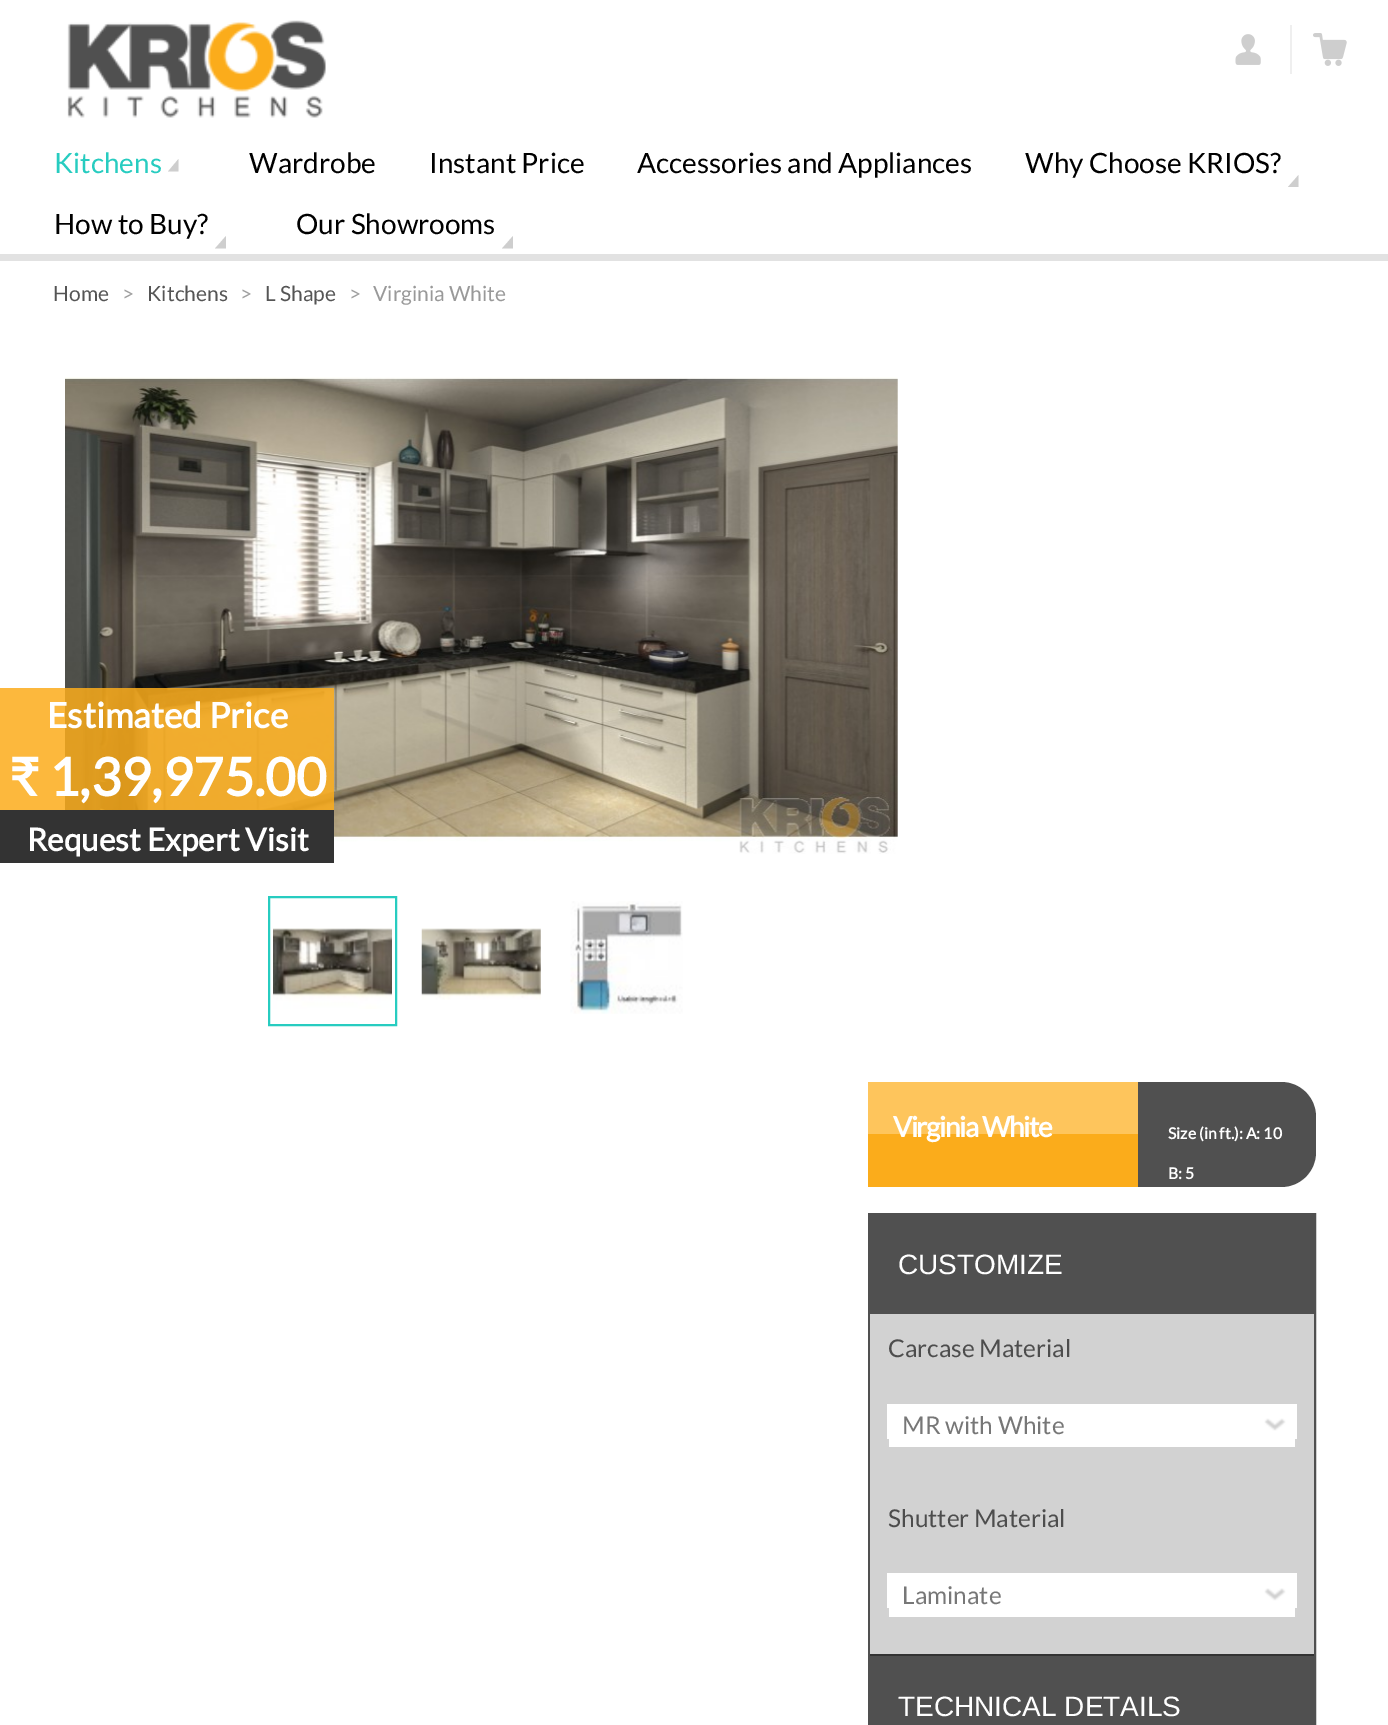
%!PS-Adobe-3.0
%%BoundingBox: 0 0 1388 1725
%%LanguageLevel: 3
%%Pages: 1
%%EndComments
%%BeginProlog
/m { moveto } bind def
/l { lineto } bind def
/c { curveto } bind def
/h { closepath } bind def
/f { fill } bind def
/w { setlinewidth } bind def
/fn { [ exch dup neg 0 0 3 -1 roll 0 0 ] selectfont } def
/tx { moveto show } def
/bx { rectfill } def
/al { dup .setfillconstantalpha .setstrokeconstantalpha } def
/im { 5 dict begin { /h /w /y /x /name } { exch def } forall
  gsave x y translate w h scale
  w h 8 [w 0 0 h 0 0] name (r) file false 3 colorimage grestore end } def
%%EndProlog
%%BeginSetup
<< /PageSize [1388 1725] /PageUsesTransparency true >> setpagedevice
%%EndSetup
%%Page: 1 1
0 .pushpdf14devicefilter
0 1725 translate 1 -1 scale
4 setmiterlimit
1 setgray
0 0 1388 1725 bx
0.886 setgray
0 254 1388 7 bx
(image0.raw) 67 20 259 98 im
0.937 setgray
1290 25 2 49 bx
(image1.raw) 1235 34 26 31 im
(image2.raw) 1313 33 34 33 im
/Lato-Regular 28 fn
0.153 0.8 0.753 setrgbcolor
(Kitchens) 54 173 tx
0.808 setgray
178.5 171.5 m 168 171.5 l 178.5 159 l h f
0 setgray
(Wardrobe) 249 173 tx
(Instant Price) 429 173 tx
(Accessories and Appliances) 637 173 tx
(Why Choose KRIOS?) 1025 173 tx
0.808 setgray
1298.5 187 m 1288 187 l 1298.5 175 l h f
0 setgray
(How to Buy?) 54 234 tx
0.808 setgray
226 248.5 m 215 248.5 l 226 236 l h f
0 setgray
(Our Showrooms) 296 234 tx
0.808 setgray
513 248.5 m 502 248.5 l 513 236 l h f
/Lato-Regular 21 fn
0.333 setgray
(Home) 53 301 tx
0.627 setgray
(>) 122 301 tx
0.333 setgray
(Kitchens) 147 301 tx
0.627 setgray
(>) 240 301 tx
0.333 setgray
(L Shape) 265 301 tx
0.627 setgray
(>) 349 301 tx
0.6 setgray
(Virginia White) 373 301 tx
(image3.raw) 65 377 833 477 im
0.85 al
0.984 0.675 0.106 setrgbcolor
0 688 334 122 bx
/Lato-Bold 35 fn
1 al
1 setgray
(Estimated Price) 47 728 tx
/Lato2-Bold 52.5 fn
(₹) 9 796 tx
/Lato-Bold 52.5 fn
(1,39,975.00) 49 796 tx
0.2 setgray
0 810 334 53 bx
/Lato-Bold 31.5 fn
1 setgray
(Request Expert Visit) 27 851 tx
0.153 0.8 0.753 setrgbcolor
2 w
269 897 127 128 rectstroke
(image4.raw) 273 928 119 81 im
(image5.raw) 421 928 120 72 im
(image6.raw) 570 901 113 113 im
0.996 0.773 0.361 setrgbcolor
868 1082 270 52 bx
0.984 0.675 0.106 setrgbcolor
868 1134 270 53 bx
/Lato-Bold 28 fn
1 setgray
893 1137 m -1.4 0 (Virginia White) ashow
0.314 setgray
1138 1082 m 1281 1082 l 1300.5 1082 1316 1097.5 1316 1117 c 1316 1152 l 1316 1171.5 1300.5 1187 1281 1187 c 1138 1187 l h f
/Lato-Bold 15.75 fn
1 setgray
(Size \(in ft.\): A: 10) 1168 1139 tx
(B: 5) 1168 1179 tx
0.314 setgray
869 1214 446 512 rectstroke
0.824 setgray
870 1314 444 340 bx
0.2 setgray
870 1654 444 2 bx
0.314 setgray
870 1215 444 99 bx
/LiberationSans-Regular 28 fn
1 setgray
(CUSTOMIZE) 898 1274 tx
/Lato-Regular 24.5 fn
0.302 setgray
(Carcase Material) 888 1357 tx
1 setgray
887 1404 410 43 bx
0.467 setgray
(MR with White) 902 1434 tx
(image7.raw) 1264 1418 22 13 im
0.827 setgray
887 1439 2 8 bx
1295 1439 2 8 bx
0.302 setgray
(Shutter Material) 888 1527 tx
1 setgray
887 1573 410 44 bx
0.467 setgray
(Laminate) 902 1604 tx
(image8.raw) 1264 1588 22 13 im
0.827 setgray
887 1608 2 9 bx
1295 1608 2 9 bx
0.314 setgray
870 1656 444 69 bx
/LiberationSans-Regular 28 fn
1 setgray
(TECHNICAL DETAILS) 898 1716 tx
.poppdf14devicefilter showpage
%%EOF
